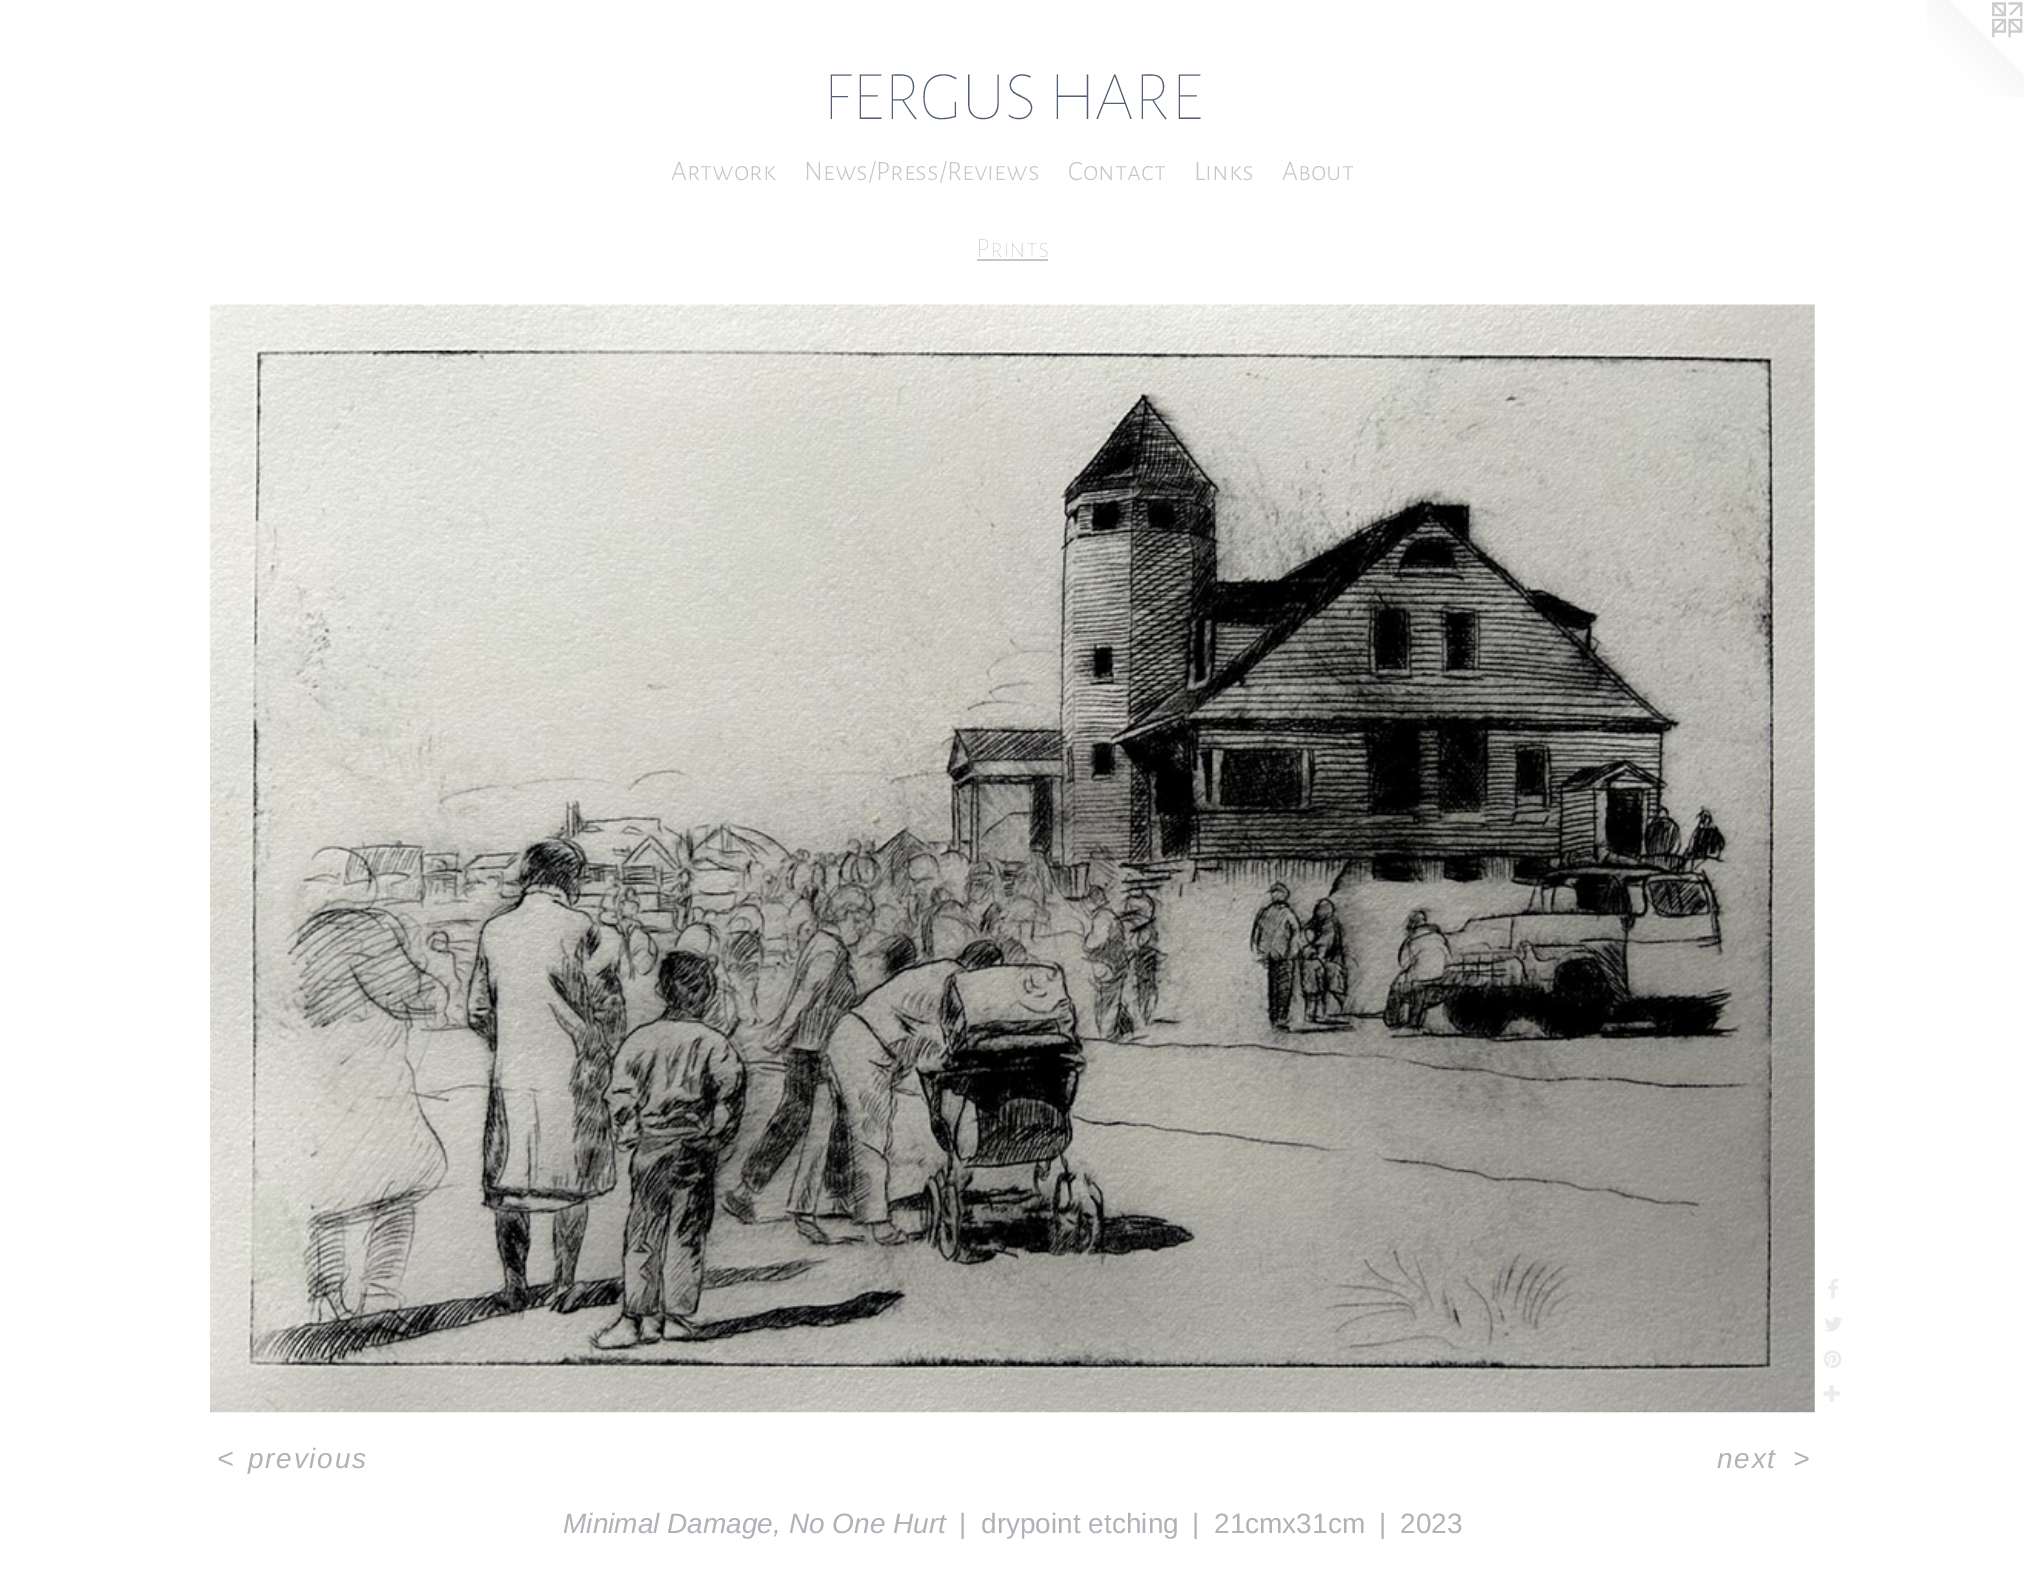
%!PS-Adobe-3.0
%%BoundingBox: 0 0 2024 1580
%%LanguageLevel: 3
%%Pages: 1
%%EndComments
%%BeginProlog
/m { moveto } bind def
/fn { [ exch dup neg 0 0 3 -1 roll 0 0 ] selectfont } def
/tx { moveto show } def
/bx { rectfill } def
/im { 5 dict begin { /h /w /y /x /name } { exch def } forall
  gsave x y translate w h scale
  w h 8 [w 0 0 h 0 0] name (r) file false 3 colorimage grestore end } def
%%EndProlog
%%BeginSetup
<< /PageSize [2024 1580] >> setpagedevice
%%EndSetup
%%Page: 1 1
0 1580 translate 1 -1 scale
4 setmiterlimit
1 setgray
0 0 2024 1580 bx
/AlegreyaSansSC-Thin 70 fn
0.322 0.376 0.459 setrgbcolor
(FERGUS HARE) 823 119 tx
(image0.raw) 1927 0 97 97 im
/AlegreyaSansSC-Light 28 fn
0.792 0.769 0.769 setrgbcolor
(Artwork) 671 180 tx
(News/Press/Reviews) 804 180 tx
(Contact) 1068 180 tx
(Links) 1194 180 tx
(About) 1282 180 tx
/AlegreyaSansSC-Thin 28 fn
(Prints) 976 257 tx
977 259 71 2 bx
(image1.raw) 210 304 1605 1109 im
(image2.raw) 1828 1278 11 21 im
(image3.raw) 1824 1317 18 15 im
(image4.raw) 1823 1350 19 19 im
(image5.raw) 1823 1385 17 17 im
/LiberationSans-Italic 28 fn
0.686 0.698 0.714 setrgbcolor
217 1468 m 1.75 0 (<) ashow
248 1468 m 1.75 0 (previous) ashow
1717 1468 m 1.75 0 (next) ashow
1793 1468 m 1.75 0 (>) ashow
(Minimal Damage, No One Hurt) 563 1533 tx
/LiberationSans-Regular 28 fn
(|) 959 1533 tx
(drypoint etching) 981 1533 tx
(|) 1192 1533 tx
(21cmx31cm) 1214 1533 tx
(|) 1379 1533 tx
(2023) 1400 1533 tx
showpage
%%EOF
